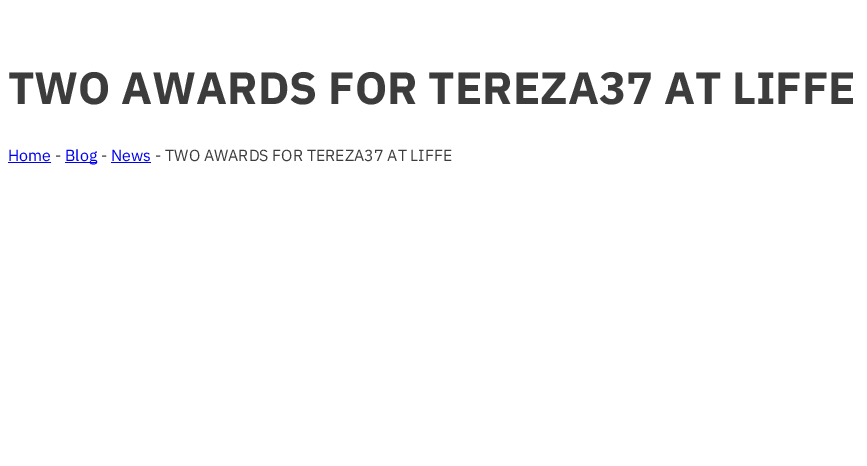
%!PS-Adobe-3.0
%%BoundingBox: 0 0 867 466
%%LanguageLevel: 3
%%Pages: 1
%%EndComments
%%BeginProlog
/fn { [ exch dup neg 0 0 3 -1 roll 0 0 ] selectfont } def
/tx { moveto show } def
/bx { rectfill } def
%%EndProlog
%%BeginSetup
<< /PageSize [867 466] >> setpagedevice
%%EndSetup
%%Page: 1 1
0 466 translate 1 -1 scale
4 setmiterlimit
1 setgray
0 0 867 466 bx
/IBMPlexSans-Bold 45.25 fn
0.235 setgray
(TWO AWARDS FOR TEREZA37 AT LIFFE) 8 104 tx
/IBMPlexSans-Regular 16 fn
0 0 0.933 setrgbcolor
(Home) 8 161 tx
8 162 43 1 bx
0.235 setgray
(-) 55 161 tx
0 0 0.933 setrgbcolor
65 162 32 1 bx
(Blog) 65 161 tx
0.235 setgray
(-) 101 161 tx
0 0 0.933 setrgbcolor
(News) 111 161 tx
111 162 40 1 bx
0.235 setgray
(- TWO AWARDS FOR TEREZA37 AT LIFFE) 155 161 tx
showpage
%%EOF
